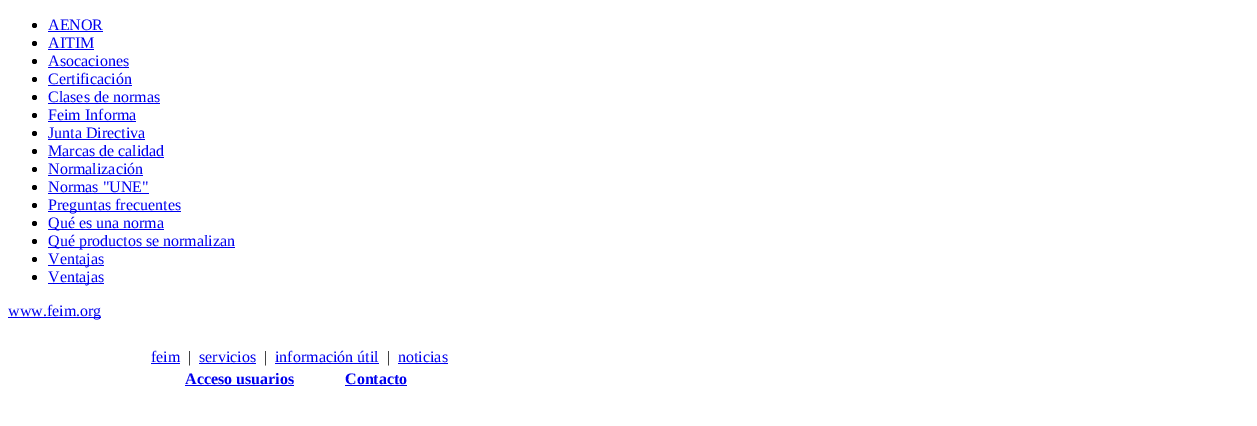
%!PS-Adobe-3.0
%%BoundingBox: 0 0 1257 426
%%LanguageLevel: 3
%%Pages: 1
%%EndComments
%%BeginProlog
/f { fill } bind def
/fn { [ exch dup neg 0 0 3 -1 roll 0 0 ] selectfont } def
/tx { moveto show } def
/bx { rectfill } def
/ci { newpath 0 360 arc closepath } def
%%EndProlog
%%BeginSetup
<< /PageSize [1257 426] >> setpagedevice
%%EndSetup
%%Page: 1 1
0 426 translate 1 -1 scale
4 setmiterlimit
1 setgray
0 0 1257 426 bx
0 setgray
34.5 25.5 2.5 ci f
/LiberationSerif-Regular 16 fn
0 0 0.933 setrgbcolor
(AENOR) 48 30 tx
48 31 55 1 bx
0 setgray
34.5 43.5 2.5 ci f
0 0 0.933 setrgbcolor
(AITIM) 48 48 tx
48 49 46 1 bx
0 setgray
34.5 61.5 2.5 ci f
0 0 0.933 setrgbcolor
(Asocaciones) 48 66 tx
48 67 81 1 bx
0 setgray
34.5 79.5 2.5 ci f
0 0 0.933 setrgbcolor
(Certificación) 48 84 tx
48 85 84 1 bx
0 setgray
34.5 97.5 2.5 ci f
0 0 0.933 setrgbcolor
(Clases de normas) 48 102 tx
48 103 112 1 bx
0 setgray
34.5 115.5 2.5 ci f
0 0 0.933 setrgbcolor
(Feim Informa) 48 120 tx
48 121 88 1 bx
0 setgray
34.5 133.5 2.5 ci f
0 0 0.933 setrgbcolor
(Junta Directiva) 48 138 tx
48 139 97 1 bx
0 setgray
34.5 151.5 2.5 ci f
0 0 0.933 setrgbcolor
(Marcas de calidad) 48 156 tx
48 157 116 1 bx
0 setgray
34.5 169.5 2.5 ci f
0 0 0.933 setrgbcolor
(Normalización) 48 174 tx
48 175 95 1 bx
0 setgray
34.5 187.5 2.5 ci f
0 0 0.933 setrgbcolor
(Normas "UNE") 48 192 tx
48 193 101 1 bx
0 setgray
34.5 205.5 2.5 ci f
0 0 0.933 setrgbcolor
48 211 133 1 bx
(Preguntas frecuentes) 48 210 tx
0 setgray
34.5 223.5 2.5 ci f
0 0 0.933 setrgbcolor
48 229 116 1 bx
(Qué es una norma) 48 228 tx
0 setgray
34.5 241.5 2.5 ci f
0 0 0.933 setrgbcolor
48 247 187 1 bx
(Qué productos se normalizan) 48 246 tx
0 setgray
34.5 259.5 2.5 ci f
0 0 0.933 setrgbcolor
48 265 56 1 bx
(Ventajas) 48 264 tx
0 setgray
34.5 277.5 2.5 ci f
0 0 0.933 setrgbcolor
48 283 56 1 bx
(Ventajas) 48 282 tx
8 317 93 1 bx
(www.feim.org) 8 316 tx
(feim) 151 362 tx
151 363 29 1 bx
0 setgray
(|) 188 362 tx
0 0 0.933 setrgbcolor
(servicios) 199 362 tx
199 363 57 1 bx
0 setgray
(|) 264 362 tx
0 0 0.933 setrgbcolor
(información útil) 275 362 tx
275 363 104 1 bx
0 setgray
(|) 387 362 tx
0 0 0.933 setrgbcolor
(noticias) 398 362 tx
398 363 50 1 bx
/LiberationSerif-Bold 16 fn
(Acceso usuarios) 185 384 tx
185 385 109 1 bx
(Contacto) 345 384 tx
345 385 62 1 bx
showpage
%%EOF
